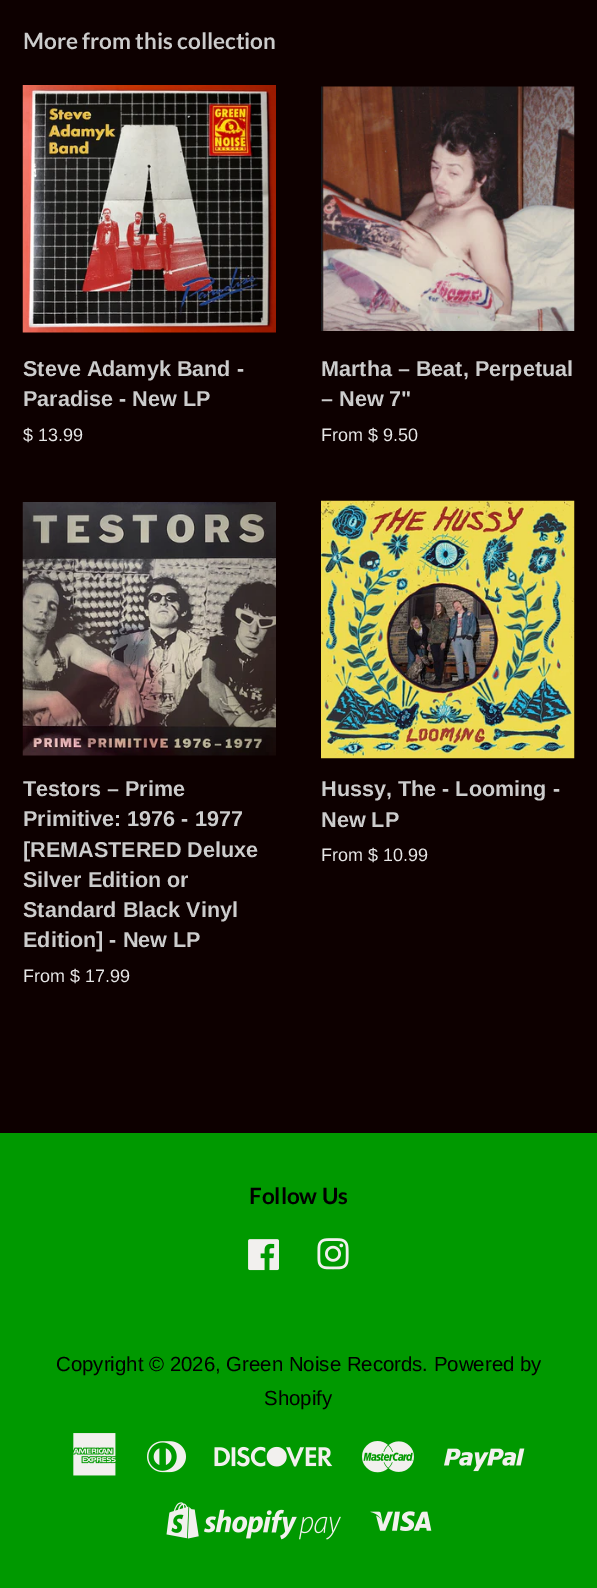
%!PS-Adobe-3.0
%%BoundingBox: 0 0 597 1588
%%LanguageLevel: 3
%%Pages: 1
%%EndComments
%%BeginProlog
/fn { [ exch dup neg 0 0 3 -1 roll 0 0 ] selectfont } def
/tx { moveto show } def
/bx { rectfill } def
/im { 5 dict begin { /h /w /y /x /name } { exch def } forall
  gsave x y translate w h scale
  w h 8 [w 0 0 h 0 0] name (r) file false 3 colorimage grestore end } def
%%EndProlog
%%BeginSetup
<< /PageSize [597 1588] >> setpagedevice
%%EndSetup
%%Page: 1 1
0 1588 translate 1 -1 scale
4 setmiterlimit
0.051 0 0 setrgbcolor
0 0 597 1588 bx
/Lato-Bold 22.5 fn
0.8 setgray
(More from this collection) 23 49 tx
(image0.raw) 22 85 254 248 im
/LiberationSans-Bold 21.6 fn
(Steve Adamyk Band -) 23 376 tx
(Paradise - New LP) 23 406 tx
/LiberationSans-Regular 18 fn
0.902 setgray
($ 13.99) 23 441 tx
(image1.raw) 321 86 254 245 im
/LiberationSans-Bold 21.6 fn
0.8 setgray
(Martha – Beat, Perpetual) 321 376 tx
(– New 7") 321 406 tx
/LiberationSans-Regular 18 fn
0.902 setgray
(From $ 9.50) 321 441 tx
(image2.raw) 22 502 254 254 im
/LiberationSans-Bold 21.6 fn
0.8 setgray
(Testors – Prime) 23 796 tx
(Primitive: 1976 - 1977) 23 826 tx
([REMASTERED Deluxe) 23 857 tx
(Silver Edition or) 23 887 tx
(Standard Black Vinyl) 23 917 tx
(Edition] - New LP) 23 947 tx
/LiberationSans-Regular 18 fn
0.902 setgray
(From $ 17.99) 23 982 tx
(image3.raw) 321 500 254 259 im
/LiberationSans-Bold 21.6 fn
0.8 setgray
(Hussy, The - Looming -) 321 796 tx
(New LP) 321 827 tx
/LiberationSans-Regular 18 fn
0.902 setgray
(From $ 10.99) 321 861 tx
0 0.6 0 setrgbcolor
0 1133 597 455 bx
/Lato-Bold 22.5 fn
0 setgray
(Follow Us) 249 1204 tx
(image4.raw) 248 1239 31 32 im
(image5.raw) 317 1238 32 32 im
/LiberationSans-Regular 20.4 fn
(Copyright © 2026, Green Noise Records. Powered by) 56 1371 tx
(Shopify) 264 1405 tx
(image6.raw) 73 1433 43 43 im
(image7.raw) 147 1441 39 32 im
(image8.raw) 214 1446 119 21 im
(image9.raw) 362 1441 52 32 im
(image10.raw) 444 1448 81 24 im
(image11.raw) 166 1502 175 38 im
(image12.raw) 370 1511 62 20 im
showpage
%%EOF
